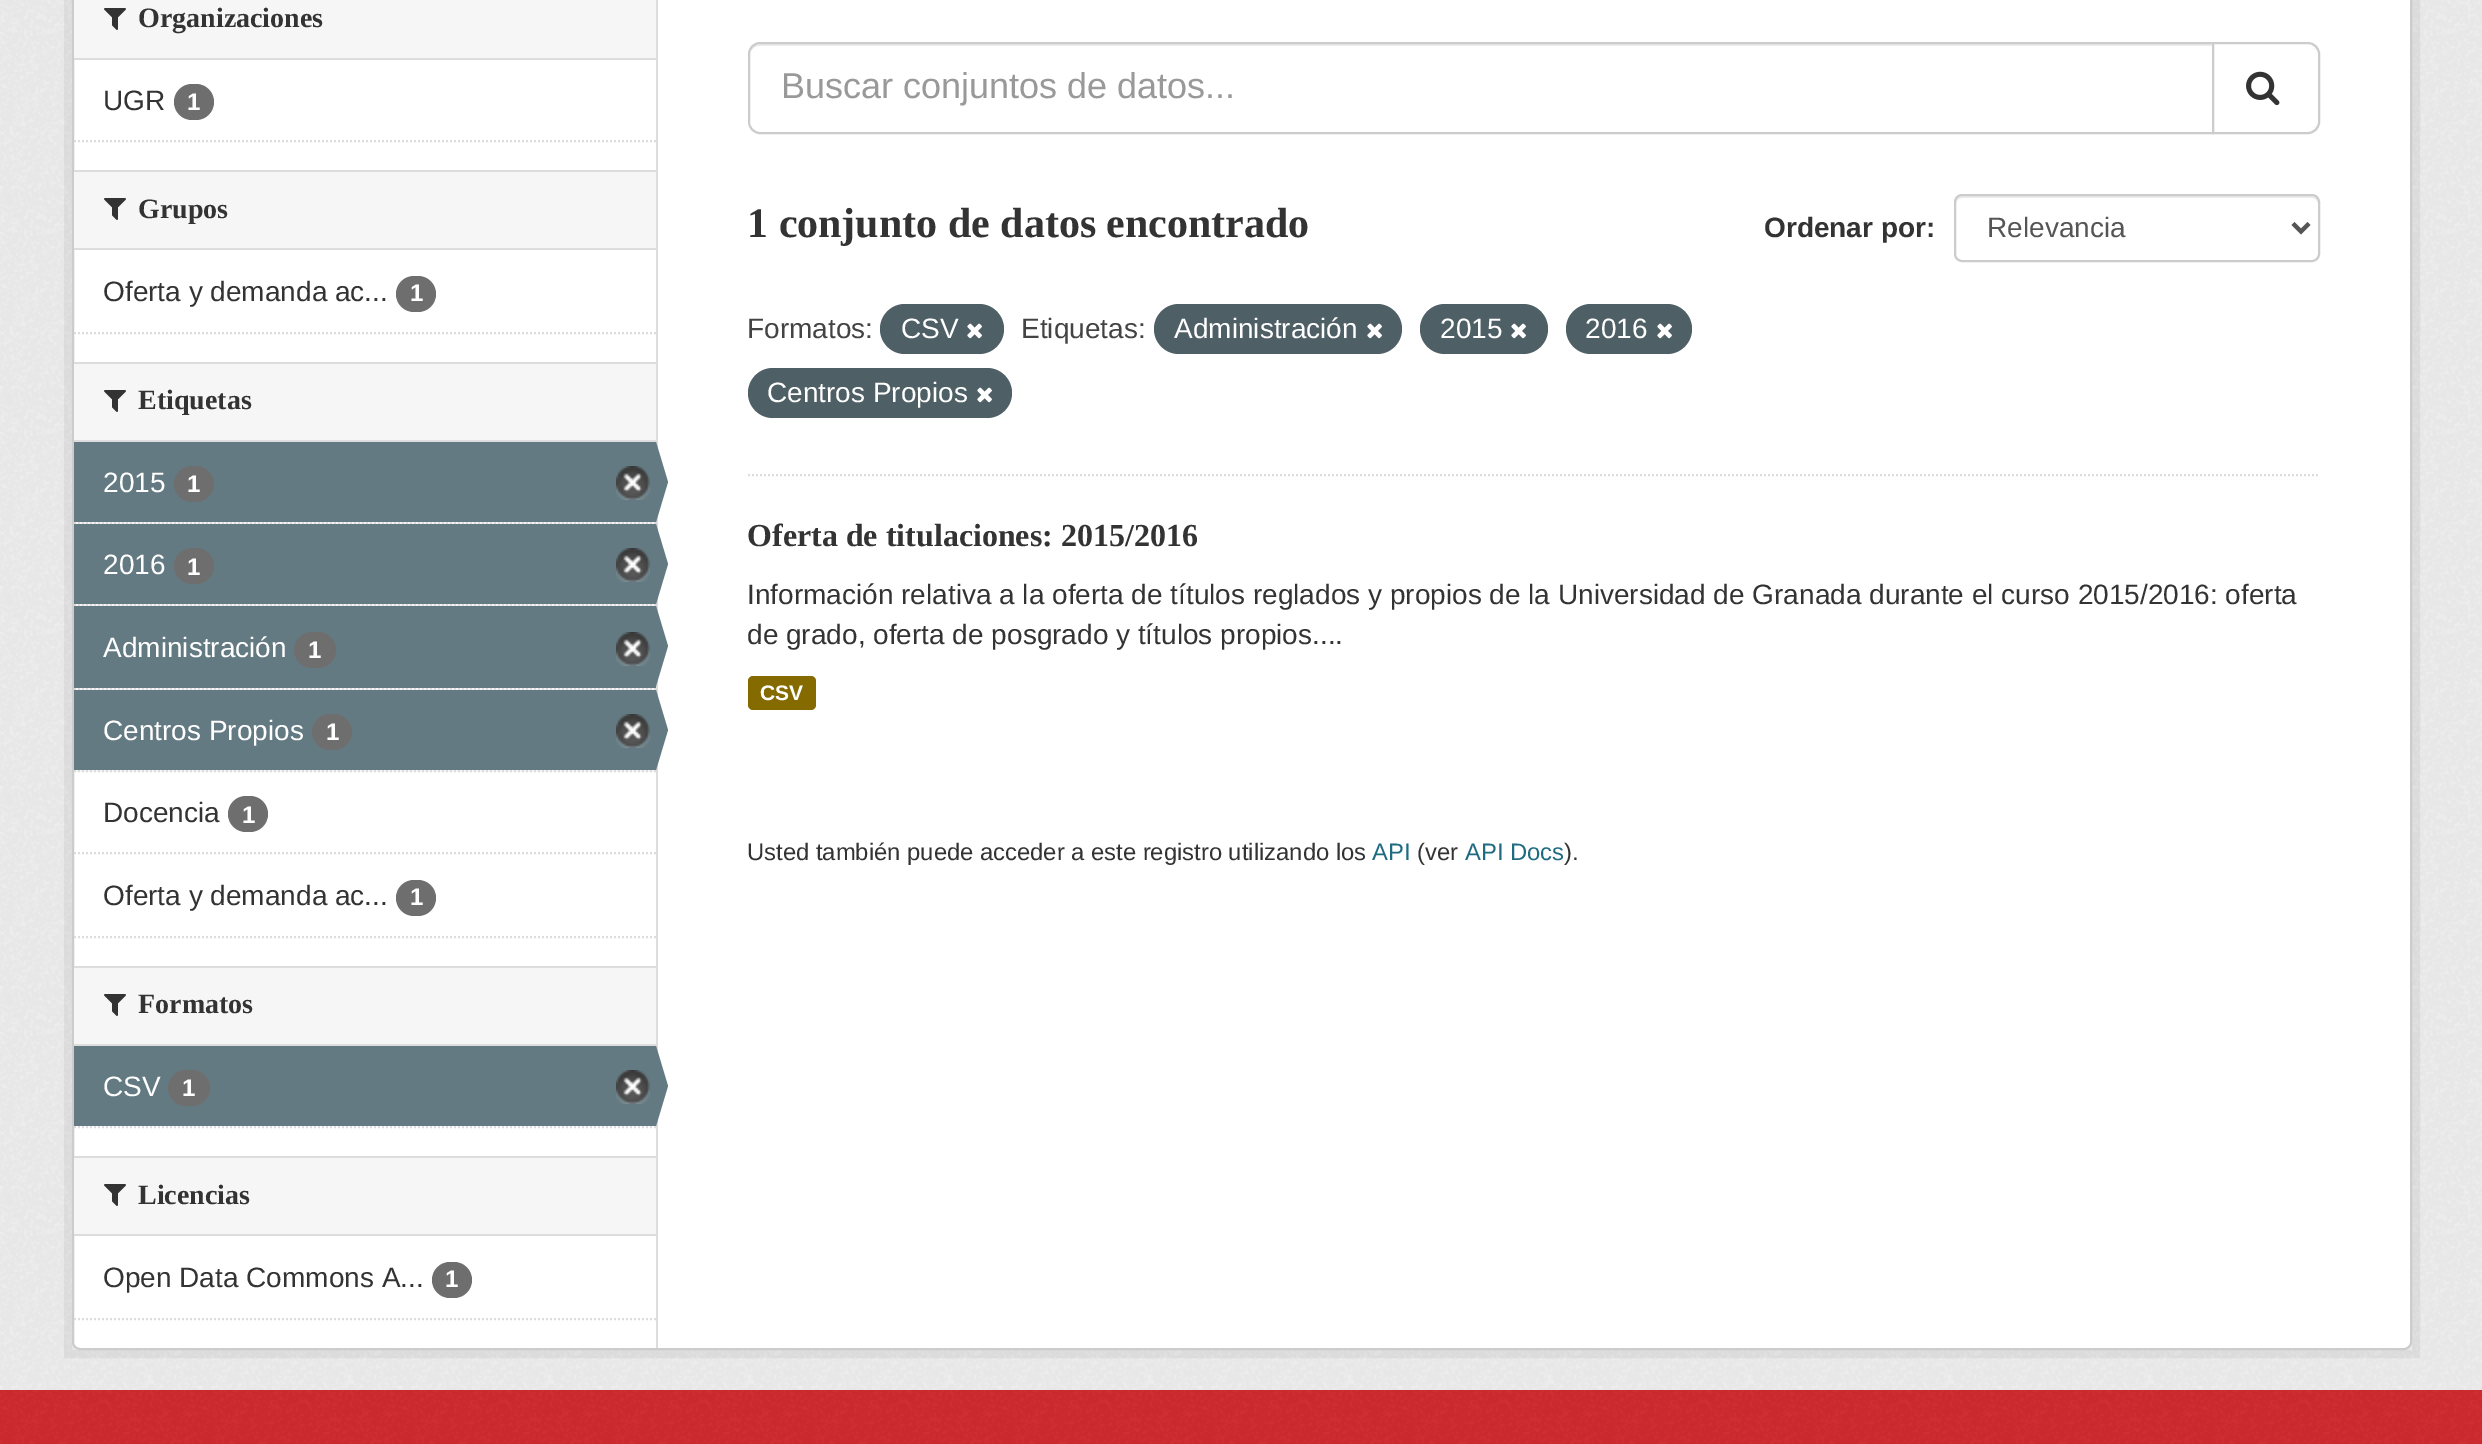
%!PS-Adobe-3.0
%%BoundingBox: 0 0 2482 1444
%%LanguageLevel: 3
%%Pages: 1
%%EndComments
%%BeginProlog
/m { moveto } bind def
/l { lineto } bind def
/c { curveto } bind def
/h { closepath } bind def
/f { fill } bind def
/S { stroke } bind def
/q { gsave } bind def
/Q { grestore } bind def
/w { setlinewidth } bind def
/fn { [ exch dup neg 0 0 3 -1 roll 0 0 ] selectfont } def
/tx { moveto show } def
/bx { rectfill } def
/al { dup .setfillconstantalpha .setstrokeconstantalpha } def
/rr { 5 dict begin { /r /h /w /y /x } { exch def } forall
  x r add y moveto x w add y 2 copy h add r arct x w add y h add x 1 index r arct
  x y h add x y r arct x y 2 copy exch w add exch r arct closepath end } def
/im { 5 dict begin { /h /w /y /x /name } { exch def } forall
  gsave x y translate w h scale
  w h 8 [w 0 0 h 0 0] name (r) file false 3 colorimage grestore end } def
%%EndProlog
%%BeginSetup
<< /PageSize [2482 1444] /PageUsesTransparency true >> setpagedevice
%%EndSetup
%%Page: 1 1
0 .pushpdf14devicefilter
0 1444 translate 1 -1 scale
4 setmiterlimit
0.82 0.169 0.18 setrgbcolor
0 0 2482 1444 bx
0.933 setgray
0 0 2482 1390 bx
(image0.raw) 0 0 2482 1390 im
0.05 al
0 setgray
8 w
68 -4 2348 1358 rectstroke
1 al
1 setgray
73 -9 2338 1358 7 rr q f Q
0.8 setgray
2 w
S
0.965 setgray
74 0 582 58 bx
0.867 setgray
74 58 582 2 bx
(image1.raw) 104 8 22 22 im
/LiberationSerif-Bold 28 fn
0.2 setgray
(Organizaciones) 138 27 tx
/LiberationSans-Regular 28 fn
(UGR) 103 110 tx
0.431 setgray
174 84 40 36 18 rr f
/LiberationSans-Bold 24 fn
1 setgray
(1) 187 110 tx
0.867 setgray
[2 2] 0 setdash
74 141 m 656 141 l S
0.965 setgray
74 172 582 76 bx
0.867 setgray
74 170 582 2 bx
74 248 582 2 bx
(image1.raw) 104 198 22 22 im
/LiberationSerif-Bold 28 fn
0.2 setgray
(Grupos) 138 218 tx
/LiberationSans-Regular 28 fn
(Oferta y demanda ac...) 103 301 tx
0.431 setgray
396 276 40 36 18 rr f
/LiberationSans-Bold 24 fn
1 setgray
(1) 410 301 tx
0.867 setgray
74 333 m 656 333 l S
0.965 setgray
74 364 582 76 bx
0.867 setgray
74 362 582 2 bx
74 440 582 2 bx
(image1.raw) 104 390 22 22 im
/LiberationSerif-Bold 28 fn
0.2 setgray
(Etiquetas) 138 409 tx
0.965 setgray
76 522 578 2 bx
0.867 setgray
74 523 m 656 523 l S
0.392 0.478 0.51 setrgbcolor
74 442 582 80 bx
/LiberationSans-Regular 28 fn
1 setgray
(2015) 103 492 tx
0.431 setgray
174 466 40 36 18 rr f
/LiberationSans-Bold 24 fn
1 setgray
(1) 187 492 tx
(image2.raw) 616 466 34 34 im
0.867 setgray
656 0 2 1348 bx
0.392 0.478 0.51 setrgbcolor
656 522 m 656 442 l 668 482 l h f
0.965 setgray
76 604 578 2 bx
0.867 setgray
74 605 m 656 605 l S
0.392 0.478 0.51 setrgbcolor
74 524 582 80 bx
/LiberationSans-Regular 28 fn
1 setgray
(2016) 103 574 tx
0.431 setgray
174 548 40 36 18 rr f
/LiberationSans-Bold 24 fn
1 setgray
(1) 187 575 tx
(image2.raw) 616 548 34 34 im
0.392 0.478 0.51 setrgbcolor
656 604 m 656 524 l 668 564 l h f
0.965 setgray
76 688 578 2 bx
0.867 setgray
74 689 m 656 689 l S
0.392 0.478 0.51 setrgbcolor
74 606 582 82 bx
/LiberationSans-Regular 28 fn
1 setgray
(Administración) 103 657 tx
0.431 setgray
294 632 42 36 18 rr f
/LiberationSans-Bold 24 fn
1 setgray
(1) 308 658 tx
(image2.raw) 616 632 34 34 im
0.392 0.478 0.51 setrgbcolor
656 686 m 656 606 l 668 646 l h f
0.965 setgray
76 770 578 2 bx
0.867 setgray
74 771 m 656 771 l S
0.392 0.478 0.51 setrgbcolor
74 690 582 80 bx
/LiberationSans-Regular 28 fn
1 setgray
(Centros Propios) 103 740 tx
0.431 setgray
312 714 40 36 18 rr f
/LiberationSans-Bold 24 fn
1 setgray
(1) 326 740 tx
(image2.raw) 616 714 34 34 im
0.392 0.478 0.51 setrgbcolor
656 770 m 656 690 l 668 730 l h f
0.867 setgray
74 853 m 656 853 l S
/LiberationSans-Regular 28 fn
0.2 setgray
(Docencia) 103 822 tx
0.431 setgray
228 796 40 36 18 rr f
/LiberationSans-Bold 24 fn
1 setgray
(1) 242 823 tx
/LiberationSans-Regular 28 fn
0.2 setgray
(Oferta y demanda ac...) 103 905 tx
0.431 setgray
396 880 40 36 18 rr f
/LiberationSans-Bold 24 fn
1 setgray
(1) 410 905 tx
0.867 setgray
74 937 m 656 937 l S
0.965 setgray
74 968 582 76 bx
0.867 setgray
74 966 582 2 bx
74 1044 582 2 bx
(image1.raw) 104 994 22 22 im
/LiberationSerif-Bold 28 fn
0.2 setgray
(Formatos) 138 1013 tx
0.392 0.478 0.51 setrgbcolor
74 1046 582 80 bx
/LiberationSans-Regular 28 fn
1 setgray
(CSV) 103 1096 tx
0.431 setgray
168 1070 42 36 18 rr f
/LiberationSans-Bold 24 fn
1 setgray
(1) 182 1096 tx
(image2.raw) 616 1070 34 34 im
0.392 0.478 0.51 setrgbcolor
656 1126 m 656 1046 l 668 1086 l h f
0.867 setgray
74 1127 m 656 1127 l S
0.965 setgray
74 1158 582 76 bx
0.867 setgray
74 1156 582 2 bx
74 1234 582 2 bx
(image1.raw) 104 1184 22 22 im
/LiberationSerif-Bold 28 fn
0.2 setgray
(Licencias) 138 1204 tx
/LiberationSans-Regular 28 fn
(Open Data Commons A...) 103 1287 tx
0.431 setgray
432 1262 40 36 18 rr f
/LiberationSans-Bold 24 fn
1 setgray
(1) 445 1287 tx
0.867 setgray
74 1319 m 656 1319 l S
748 475 m 2320 475 l S
0.925 setgray
760 46 m 2212 46 l 2212 44 l 760 44 l 753 44 750 50 750 56 c 750 50 754 46 760 46 c h f
0.8 setgray
[] 0 setdash
760 43 m 2213 43 l 2213 133 l 760 133 l 754 133 749 128 749 122 c 749 54 l 749 48 754 43 760 43 c h S
/LiberationSans-Regular 36 fn
0.6 setgray
(Buscar conjuntos de datos...) 781 98 tx
1 setgray
2213 43 m 2308 43 l 2314 43 2319 48 2319 54 c 2319 122 l 2319 128 2314 133 2308 133 c 2213 133 l h q f Q
0.8 setgray
S
(image3.raw) 2246 71 34 35 im
/LiberationSerif-Bold 42 fn
0.2 setgray
(1 conjunto de datos encontrado) 747 237 tx
/LiberationSans-Bold 28 fn
(Ordenar por:) 1764 237 tx
0.925 setgray
1962 198 m 2312 198 l 2315 198 2318 201 2318 204 c 2318 202 l 2318 199 2315 196 2312 196 c 1962 196 l 1959 196 1956 199 1956 202 c 1956 204 l 1956 201 1959 198 1962 198 c h f
0.8 setgray
1955 195 364 66 7 rr S
0.333 setgray
4 w
2293 223.5 m 2301 231.5 l 2309 223.5 l S
/LiberationSans-Regular 28 fn
(Relevancia) 1987 237 tx
0.267 setgray
(Formatos:) 747 338 tx
0.306 0.373 0.396 setrgbcolor
880 304 124 50 25 rr f
1 setgray
(CSV) 901 338 tx
(image4.raw) 967 323 15 16 im
0.267 setgray
(Etiquetas:) 1021 338 tx
0.306 0.373 0.396 setrgbcolor
1154 304 248 50 25 rr f
1 setgray
(Administración) 1174 338 tx
(image4.raw) 1367 323 15 16 im
0.306 0.373 0.396 setrgbcolor
1420 304 128 50 25 rr f
1 setgray
(2015) 1440 338 tx
(image4.raw) 1511 323 15 16 im
0.306 0.373 0.396 setrgbcolor
1566 304 126 50 25 rr f
1 setgray
(2016) 1585 338 tx
(image4.raw) 1657 323 15 16 im
0.306 0.373 0.396 setrgbcolor
748 368 264 50 25 rr f
1 setgray
(Centros Propios) 767 402 tx
(image4.raw) 977 387 15 16 im
/LiberationSerif-Bold 32 fn
0.2 setgray
(Oferta de titulaciones: 2015/2016) 747 546 tx
/LiberationSans-Regular 28 fn
(Información relativa a la oferta de títulos reglados y propios de la Universidad de Granada durante el curso 2015/2016: oferta) 747 604 tx
(de grado, oferta de posgrado y títulos propios....) 747 644 tx
0.522 0.416 0 setrgbcolor
748 676 68 34 5 rr f
/LiberationSans-Bold 21 fn
1 setgray
(CSV) 760 700 tx
/LiberationSans-Regular 23.8 fn
0.2 setgray
(Usted también puede acceder a este registro utilizando los) 747 860 tx
0.125 0.42 0.51 setrgbcolor
(API) 1372 860 tx
0.2 setgray
(\(ver) 1417 860 tx
0.125 0.42 0.51 setrgbcolor
(API Docs) 1465 860 tx
0.2 setgray
(\).) 1564 860 tx
(image5.raw) 0 1390 2482 54 im
.poppdf14devicefilter showpage
%%EOF
